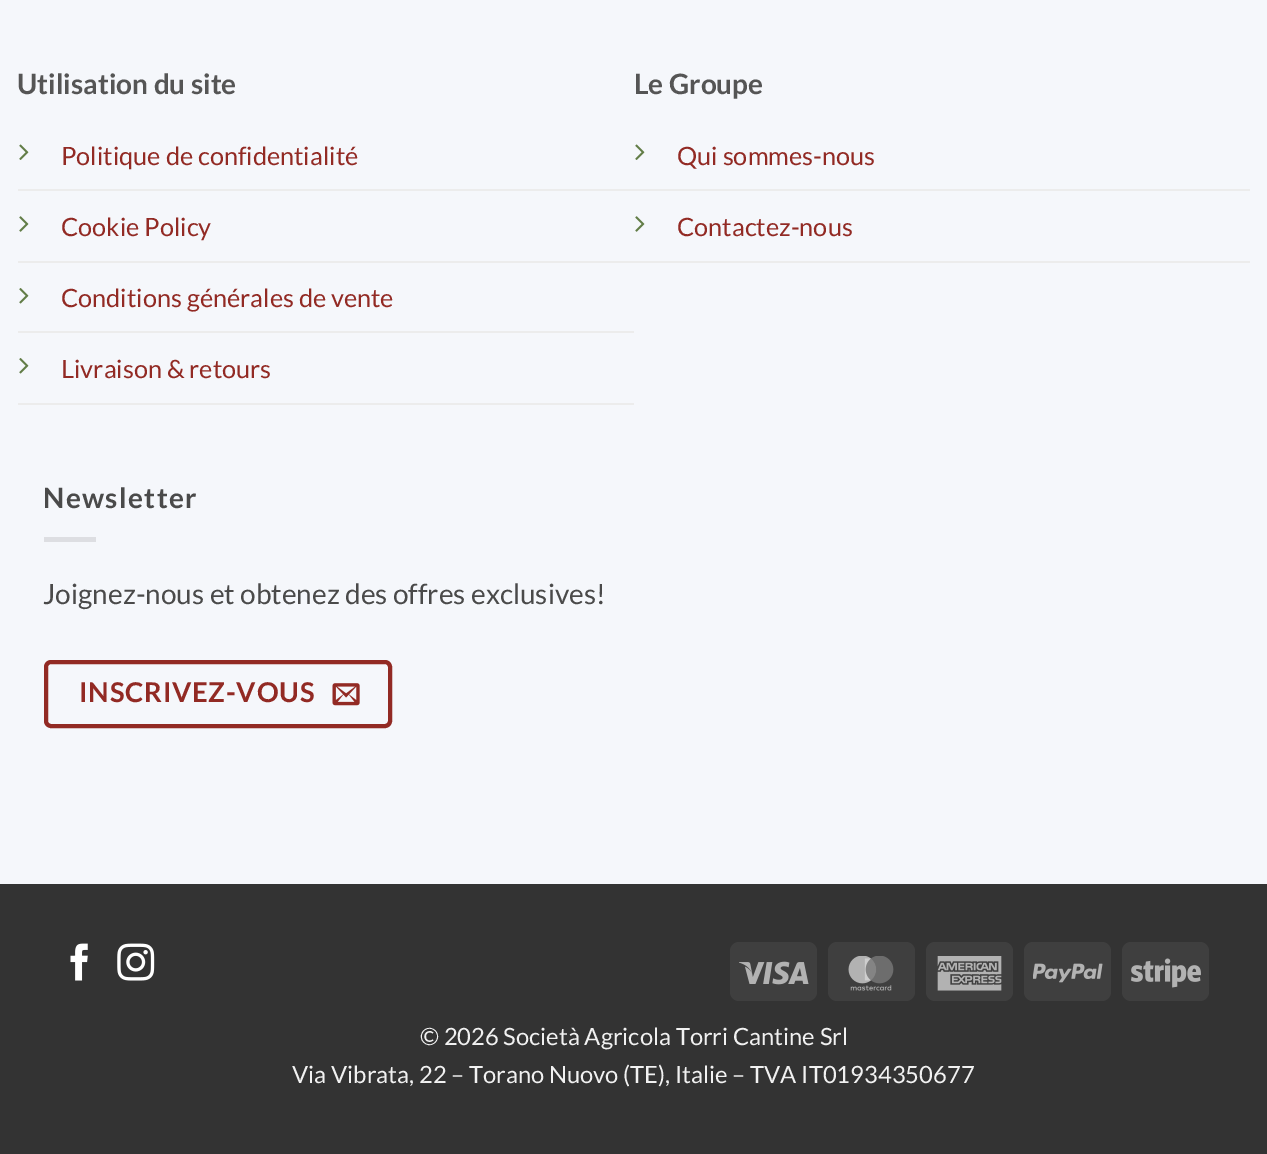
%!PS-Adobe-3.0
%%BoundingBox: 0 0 1267 1154
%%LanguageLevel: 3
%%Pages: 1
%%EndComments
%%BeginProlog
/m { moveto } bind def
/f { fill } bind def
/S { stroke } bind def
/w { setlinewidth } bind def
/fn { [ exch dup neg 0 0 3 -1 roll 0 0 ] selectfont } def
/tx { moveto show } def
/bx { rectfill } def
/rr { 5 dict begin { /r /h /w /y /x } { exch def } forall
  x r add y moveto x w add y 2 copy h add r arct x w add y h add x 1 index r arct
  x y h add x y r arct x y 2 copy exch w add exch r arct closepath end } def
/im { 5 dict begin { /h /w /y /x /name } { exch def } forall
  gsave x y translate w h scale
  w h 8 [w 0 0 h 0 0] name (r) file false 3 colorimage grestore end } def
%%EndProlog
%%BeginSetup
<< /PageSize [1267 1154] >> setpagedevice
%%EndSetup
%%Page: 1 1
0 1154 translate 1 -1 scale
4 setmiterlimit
0.2 setgray
0 0 1267 1154 bx
0.961 0.969 0.984 setrgbcolor
0 0 1267 884 bx
/Lato-Bold 28 fn
0.333 setgray
(Utilisation du site) 17 94 tx
0.925 setgray
18 189 1232 2 bx
(image0.raw) 19 144 10 16 im
/Lato-Regular 25.25 fn
0.573 0.165 0.141 setrgbcolor
(Politique de confidentialité) 61 165 tx
0.925 setgray
18 261 1232 2 bx
(image1.raw) 19 216 10 16 im
0.573 0.165 0.141 setrgbcolor
(Cookie Policy) 61 236 tx
0.925 setgray
18 331 616 2 bx
(image2.raw) 19 288 10 16 im
0.573 0.165 0.141 setrgbcolor
(Conditions générales de vente) 61 307 tx
0.925 setgray
18 403 616 2 bx
(image2.raw) 19 358 10 16 im
0.573 0.165 0.141 setrgbcolor
(Livraison & retours) 61 378 tx
/Lato-Bold 28 fn
0.333 setgray
(Le Groupe) 634 94 tx
(image0.raw) 635 144 10 16 im
/Lato-Regular 25.25 fn
0.573 0.165 0.141 setrgbcolor
(Qui sommes-nous) 677 165 tx
(image1.raw) 635 216 10 16 im
(Contactez-nous) 677 236 tx
/Lato-Bold 28 fn
0.29 setgray
43 508 m 1.4 0 (Newsletter) ashow
0.867 0.871 0.886 setrgbcolor
44 537 52 5 bx
/Lato-Regular 28 fn
0.29 setgray
(Joignez-nous et obtenez des offres exclusives!) 43 604 tx
0.573 0.165 0.141 setrgbcolor
4 w
46 662 344 64 5 rr S
/Lato-Bold 27.25 fn
79 702 m 0.75 0 (INSCRIVEZ-VOUS) ashow
(image3.raw) 332 683 28 23 im
(image4.raw) 70 943 18 38 im
(image5.raw) 117 943 38 38 im
0.247 setgray
730 942 87 59 9 rr f
(image6.raw) 739 961 70 24 im
828 942 87 59 9 rr f
(image7.raw) 848 956 46 35 im
926 942 87 59 9 rr f
(image8.raw) 937 956 65 35 im
1024 942 87 59 9 rr f
(image9.raw) 1033 963 70 20 im
1122 942 87 59 9 rr f
(image10.raw) 1131 958 70 30 im
/Lato-Regular 23.8 fn
0.945 setgray
(© 2026 Società Agricola Torri Cantine Srl) 420 1045 tx
(Via Vibrata, 22 – Torano Nuovo \(TE\), Italie – TVA IT01934350677) 292 1083 tx
showpage
%%EOF
